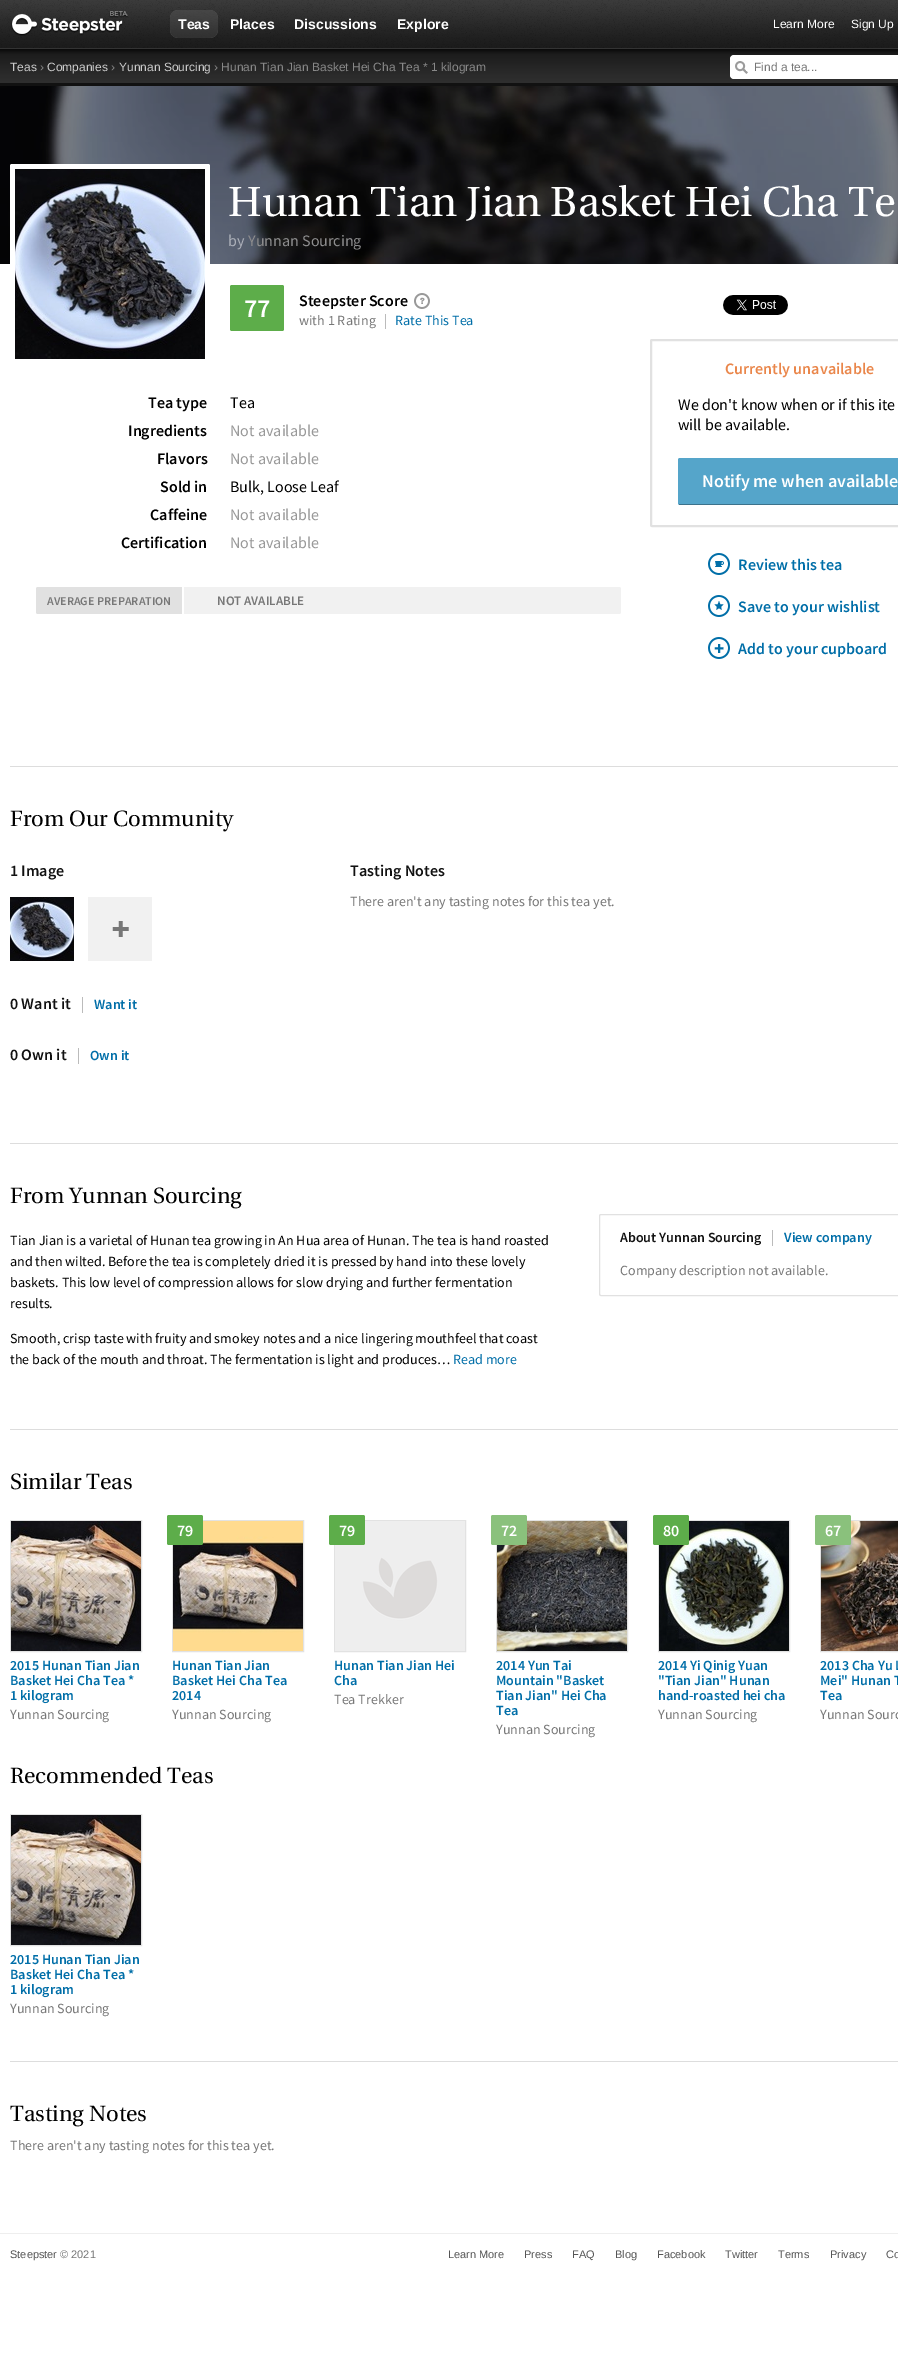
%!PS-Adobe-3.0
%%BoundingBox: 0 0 898 2359
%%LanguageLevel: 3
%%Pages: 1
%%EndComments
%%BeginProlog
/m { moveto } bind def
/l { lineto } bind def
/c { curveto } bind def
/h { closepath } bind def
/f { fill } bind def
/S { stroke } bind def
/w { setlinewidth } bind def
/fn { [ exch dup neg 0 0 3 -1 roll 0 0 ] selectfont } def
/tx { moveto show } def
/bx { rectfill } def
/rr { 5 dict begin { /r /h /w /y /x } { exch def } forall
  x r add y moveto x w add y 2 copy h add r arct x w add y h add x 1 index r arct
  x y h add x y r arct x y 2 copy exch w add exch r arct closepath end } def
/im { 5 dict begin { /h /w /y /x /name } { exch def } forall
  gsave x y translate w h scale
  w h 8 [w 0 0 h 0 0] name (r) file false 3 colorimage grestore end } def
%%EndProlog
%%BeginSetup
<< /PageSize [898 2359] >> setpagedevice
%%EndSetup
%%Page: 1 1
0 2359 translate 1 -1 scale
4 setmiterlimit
1 setgray
0 0 898 2359 bx
(image0.raw) 0 0 898 48 im
(image1.raw) 11 11 117 25 im
0.333 setgray
170 10 48 28 8 rr f
(image2.raw) 170 10 48 28 im
/LiberationSans-Bold 14 fn
1 setgray
(Teas) 178 29 tx
(Places) 230 29 tx
(Discussions) 294 29 tx
(Explore) 397 29 tx
/LiberationSans-Regular 12 fn
(Learn More) 773 28 tx
(Sign Up) 851 28 tx
0.067 setgray
0 83 898 3 bx
(image3.raw) 0 49 898 34 im
0.2 setgray
0 48 898 1 bx
0.8 setgray
(Teas) 10 71 tx
0.533 setgray
(›) 40 71 tx
0.8 setgray
(Companies) 47 71 tx
0.533 setgray
(›) 111 71 tx
0.8 setgray
(Yunnan Sourcing) 119 71 tx
0.533 setgray
(› Hunan Tian Jian Basket Hei Cha Tea * 1 kilogram) 214 71 tx
1 setgray
730 55 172 24 4 rr f
(image4.raw) 735 61 13 13 im
0.467 setgray
(Find a tea...) 754 71 tx
(image5.raw) 0 86 898 178 im
1 setgray
10 164 200 200 2 rr f
(image6.raw) 15 169 190 190 im
/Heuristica-Regular 42 fn
(Hunan Tian Jian Basket Hei Cha Te) 228 216 tx
/SourceSansPro-Regular 16 fn
0.671 0.686 0.722 setrgbcolor
(by) 228 246 tx
0.553 0.553 0.557 setrgbcolor
(Yunnan Sourcing) 248 246 tx
0.365 0.678 0.29 setrgbcolor
230 285 54 46 2 rr f
/SourceSansPro-SemiBold 26 fn
1 setgray
(77) 244 317 tx
/SourceSansPro-SemiBold 16 fn
0 setgray
(Steepster Score) 299 306 tx
(image7.raw) 414 293 16 16 im
/SourceSansPro-Regular 14 fn
0.467 setgray
(with 1 Rating) 299 325 tx
0.733 setgray
385 314 1 15 bx
0 0.431 0.659 setrgbcolor
(Rate This Tea) 395 325 tx
/SourceSansPro-SemiBold 16 fn
0 setgray
(Tea type) 148 408 tx
/SourceSansPro-Regular 16 fn
(Tea) 230 408 tx
/SourceSansPro-SemiBold 16 fn
(Ingredients) 128 436 tx
/SourceSansPro-Regular 16 fn
0.6 setgray
(Not available) 230 436 tx
/SourceSansPro-SemiBold 16 fn
0 setgray
(Flavors) 157 464 tx
/SourceSansPro-Regular 16 fn
0.6 setgray
(Not available) 230 464 tx
/SourceSansPro-SemiBold 16 fn
0 setgray
(Sold in) 160 492 tx
/SourceSansPro-Regular 16 fn
(Bulk, Loose Leaf) 230 492 tx
/SourceSansPro-SemiBold 16 fn
(Caffeine) 150 520 tx
/SourceSansPro-Regular 16 fn
0.6 setgray
(Not available) 230 520 tx
/SourceSansPro-SemiBold 16 fn
0 setgray
(Certification) 121 548 tx
/SourceSansPro-Regular 16 fn
0.6 setgray
(Not available) 230 548 tx
0.945 setgray
36 587 585 27 2 rr f
0.882 setgray
38 587 m 184 587 l 184 614 l 38 614 l 37 614 36 613 36 612 c 36 589 l 36 588 37 587 38 587 c h f
1 setgray
182 587 2 27 bx
/SourceSansPro-SemiBold 12 fn
0.467 setgray
(AVERAGE PREPARATION) 47 605 tx
/SourceSansPro-SemiBold 13 fn
(NOT AVAILABLE) 217 605 tx
(image8.raw) 723 295 65 20 im
0.882 setgray
2 w
651 340 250 186 1 rr S
/SourceSansPro-SemiBold 16 fn
0.918 0.525 0.29 setrgbcolor
(Currently unavailable) 725 374 tx
/SourceSansPro-Regular 16 fn
0 setgray
(We don't know when or if this ite) 678 410 tx
(will be available.) 678 430 tx
0.333 0.647 0.792 setrgbcolor
678 458 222 47 2 rr f
0.235 0.447 0.545 setrgbcolor
679 504 219 1 bx
/SourceSansPro-SemiBold 18 fn
1 setgray
(Notify me when available) 702 487 tx
(image9.raw) 708 553 22 22 im
/SourceSansPro-SemiBold 16 fn
0 0.431 0.659 setrgbcolor
(Review this tea) 738 570 tx
(image10.raw) 708 595 22 22 im
(Save to your wishlist) 738 612 tx
(image11.raw) 708 637 22 22 im
(Add to your cupboard) 738 654 tx
0.867 setgray
10 766 888 1 bx
/Heuristica-Regular 22 fn
0 setgray
(From Our Community) 10 826 tx
/SourceSansPro-SemiBold 16 fn
0.067 setgray
(1 Image) 10 876 tx
(image12.raw) 10 897 64 64 im
0.945 setgray
88 897 64 64 bx
(image13.raw) 112 921 17 16 im
0.067 setgray
(0 Want it) 10 1009 tx
0.733 setgray
82 997 1 16 bx
/SourceSansPro-SemiBold 14 fn
0 0.431 0.659 setrgbcolor
(Want it) 94 1009 tx
/SourceSansPro-SemiBold 16 fn
0.067 setgray
(0 Own it) 10 1060 tx
0.733 setgray
78 1048 1 16 bx
/SourceSansPro-SemiBold 14 fn
0 0.431 0.659 setrgbcolor
(Own it) 90 1060 tx
/SourceSansPro-SemiBold 16 fn
0.067 setgray
(Tasting Notes) 350 876 tx
/SourceSansPro-Regular 14 fn
0.467 setgray
(There aren't any tasting notes for this tea yet.) 350 906 tx
0.867 setgray
10 1143 888 1 bx
/Heuristica-Regular 22 fn
0 setgray
(From Yunnan Sourcing) 10 1203 tx
/SourceSansPro-Regular 14 fn
(Tian Jian is a varietal of Hunan tea growing in An Hua area of Hunan. The tea is hand roasted) 10 1245 tx
(and then wilted. Before the tea is completely dried it is pressed by hand into these lovely) 10 1266 tx
(baskets. This low level of compression allows for slow drying and further fermentation) 10 1287 tx
(results.) 10 1308 tx
(Smooth, crisp taste with fruity and smokey notes and a nice lingering mouthfeel that coast) 10 1343 tx
(the back of the mouth and throat. The fermentation is light and produces…) 10 1364 tx
0 0.431 0.659 setrgbcolor
(Read more) 453 1364 tx
0.882 setgray
1 w
599.5 1214.5 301 81 1.5 rr S
/SourceSansPro-SemiBold 14 fn
0.067 setgray
(About Yunnan Sourcing) 620 1242 tx
0.733 setgray
772 1230 1 16 bx
0 0.431 0.659 setrgbcolor
(View company) 784 1242 tx
/SourceSansPro-Regular 14 fn
0.467 setgray
(Company description not available.) 620 1275 tx
0.867 setgray
10 1429 888 1 bx
/Heuristica-Regular 22 fn
0 setgray
(Similar Teas) 10 1489 tx
0.886 setgray
10.5 1520.5 131 131 rectstroke
(image14.raw) 11 1521 130 130 im
/SourceSansPro-SemiBold 14 fn
0 0.431 0.659 setrgbcolor
(2015 Hunan Tian Jian) 10 1670 tx
(Basket Hei Cha Tea *) 10 1685 tx
(1 kilogram) 10 1700 tx
/SourceSansPro-Regular 14 fn
0.467 setgray
(Yunnan Sourcing) 10 1719 tx
0.886 setgray
172.5 1520.5 131 131 rectstroke
(image15.raw) 173 1521 130 130 im
0.365 0.678 0.29 setrgbcolor
167 1515 36 30 2 rr f
/SourceSansPro-SemiBold 16 fn
1 setgray
(79) 177 1536 tx
/SourceSansPro-SemiBold 14 fn
0 0.431 0.659 setrgbcolor
(Hunan Tian Jian) 172 1670 tx
(Basket Hei Cha Tea) 172 1685 tx
(2014) 172 1700 tx
/SourceSansPro-Regular 14 fn
0.467 setgray
(Yunnan Sourcing) 172 1719 tx
0.886 setgray
334.5 1520.5 131 131 rectstroke
(image16.raw) 335 1521 130 130 im
0.365 0.678 0.29 setrgbcolor
329 1515 36 30 2 rr f
/SourceSansPro-SemiBold 16 fn
1 setgray
(79) 339 1536 tx
/SourceSansPro-SemiBold 14 fn
0 0.431 0.659 setrgbcolor
(Hunan Tian Jian Hei) 334 1670 tx
(Cha) 334 1685 tx
/SourceSansPro-Regular 14 fn
0.467 setgray
(Tea Trekker) 334 1704 tx
0.886 setgray
496.5 1520.5 131 131 rectstroke
(image17.raw) 497 1521 130 130 im
0.541 0.757 0.486 setrgbcolor
491 1515 36 30 2 rr f
/SourceSansPro-SemiBold 16 fn
1 setgray
(72) 501 1536 tx
/SourceSansPro-SemiBold 14 fn
0 0.431 0.659 setrgbcolor
(2014 Yun Tai) 496 1670 tx
(Mountain "Basket) 496 1685 tx
(Tian Jian" Hei Cha) 496 1700 tx
(Tea) 496 1715 tx
/SourceSansPro-Regular 14 fn
0.467 setgray
(Yunnan Sourcing) 496 1734 tx
0.886 setgray
658.5 1520.5 131 131 rectstroke
(image18.raw) 659 1521 130 130 im
0.365 0.678 0.29 setrgbcolor
653 1515 36 30 2 rr f
/SourceSansPro-SemiBold 16 fn
1 setgray
(80) 663 1536 tx
/SourceSansPro-SemiBold 14 fn
0 0.431 0.659 setrgbcolor
(2014 Yi Qinig Yuan) 658 1670 tx
("Tian Jian" Hunan) 658 1685 tx
(hand-roasted hei cha) 658 1700 tx
/SourceSansPro-Regular 14 fn
0.467 setgray
(Yunnan Sourcing) 658 1719 tx
0.886 setgray
820.5 1520.5 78 131 rectstroke
(image19.raw) 821 1521 77 130 im
0.541 0.757 0.486 setrgbcolor
815 1515 36 30 2 rr f
/SourceSansPro-SemiBold 16 fn
1 setgray
(67) 825 1536 tx
/SourceSansPro-SemiBold 14 fn
0 0.431 0.659 setrgbcolor
(2013 Cha Yu L) 820 1670 tx
(Mei" Hunan T) 820 1685 tx
(Tea) 820 1700 tx
/SourceSansPro-Regular 14 fn
0.467 setgray
(Yunnan Sourc) 820 1719 tx
/Heuristica-Regular 22 fn
0 setgray
(Recommended Teas) 10 1783 tx
0.886 setgray
10.5 1814.5 131 131 rectstroke
(image14.raw) 11 1815 130 130 im
/SourceSansPro-SemiBold 14 fn
0 0.431 0.659 setrgbcolor
(2015 Hunan Tian Jian) 10 1964 tx
(Basket Hei Cha Tea *) 10 1979 tx
(1 kilogram) 10 1994 tx
/SourceSansPro-Regular 14 fn
0.467 setgray
(Yunnan Sourcing) 10 2013 tx
0.867 setgray
10 2061 888 1 bx
/Heuristica-Regular 22 fn
0 setgray
(Tasting Notes) 10 2121 tx
/SourceSansPro-Regular 14 fn
0.467 setgray
(There aren't any tasting notes for this tea yet.) 10 2150 tx
0.933 setgray
0 2233 898 1 bx
/LiberationSans-Regular 11 fn
0.333 setgray
(Steepster) 10 2258 tx
0.467 setgray
(© 2021) 60 2258 tx
0.333 setgray
(Learn More) 448 2258 tx
(Press) 524 2258 tx
(FAQ) 572 2258 tx
(Blog) 615 2258 tx
(Facebook) 657 2258 tx
(Twitter) 725 2258 tx
(Terms) 778 2258 tx
(Privacy) 830 2258 tx
(Co) 886 2258 tx
showpage
%%EOF
